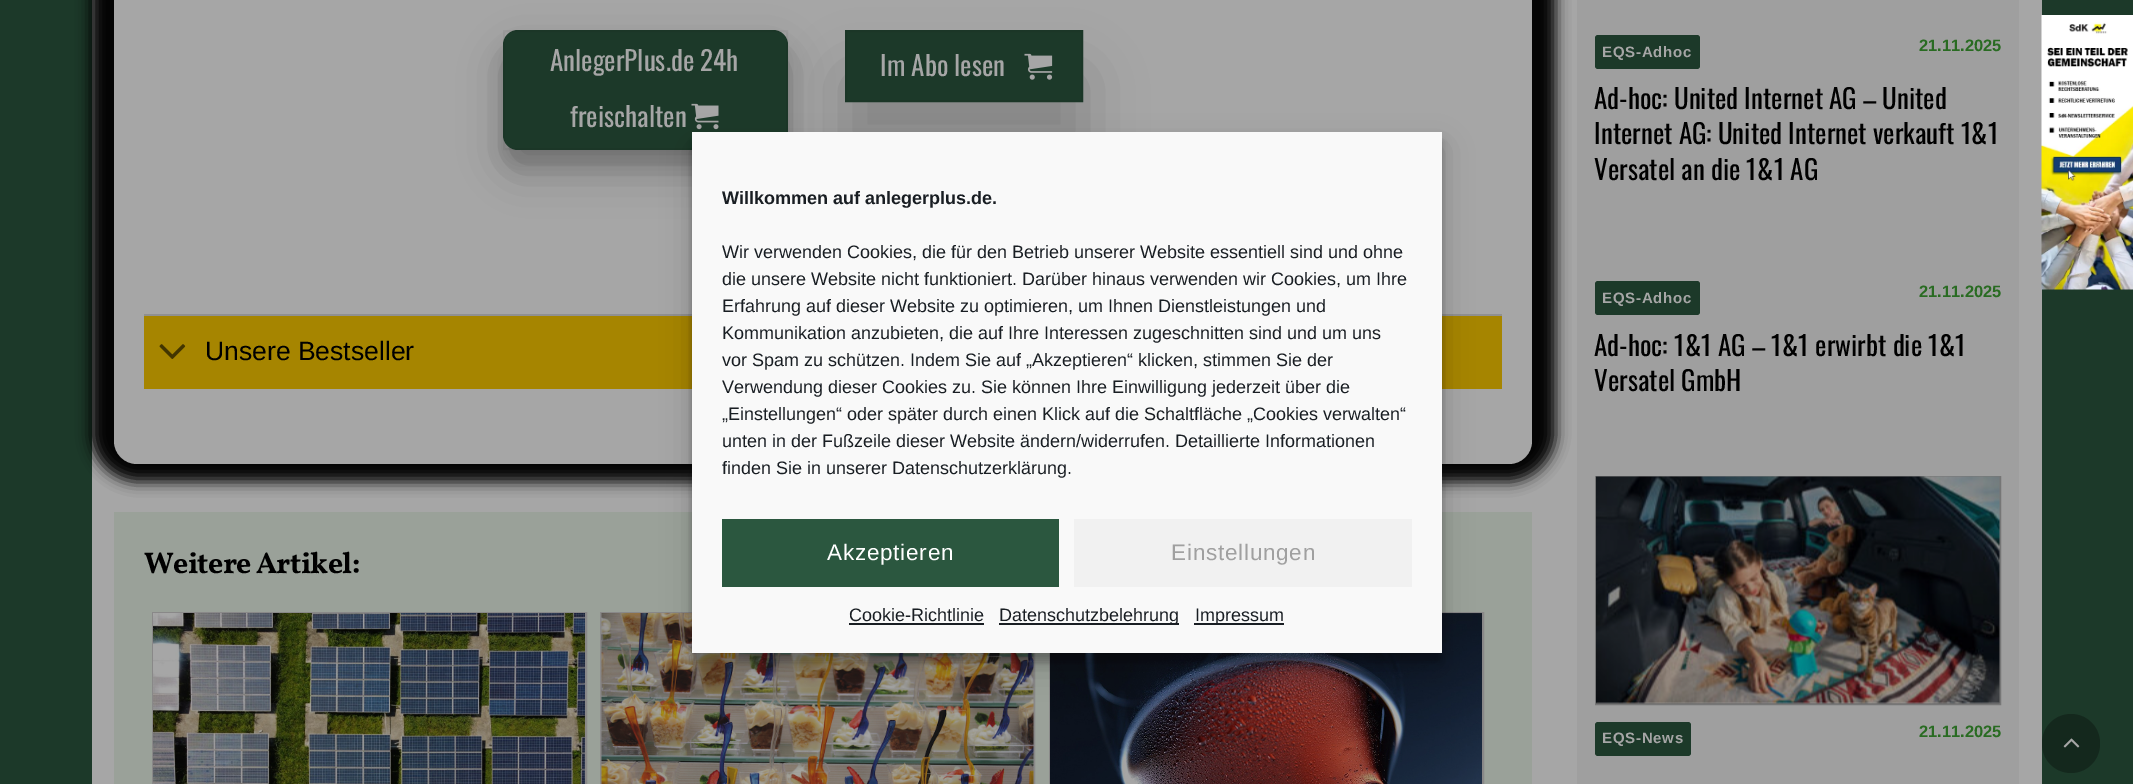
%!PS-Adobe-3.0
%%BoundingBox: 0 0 2133 784
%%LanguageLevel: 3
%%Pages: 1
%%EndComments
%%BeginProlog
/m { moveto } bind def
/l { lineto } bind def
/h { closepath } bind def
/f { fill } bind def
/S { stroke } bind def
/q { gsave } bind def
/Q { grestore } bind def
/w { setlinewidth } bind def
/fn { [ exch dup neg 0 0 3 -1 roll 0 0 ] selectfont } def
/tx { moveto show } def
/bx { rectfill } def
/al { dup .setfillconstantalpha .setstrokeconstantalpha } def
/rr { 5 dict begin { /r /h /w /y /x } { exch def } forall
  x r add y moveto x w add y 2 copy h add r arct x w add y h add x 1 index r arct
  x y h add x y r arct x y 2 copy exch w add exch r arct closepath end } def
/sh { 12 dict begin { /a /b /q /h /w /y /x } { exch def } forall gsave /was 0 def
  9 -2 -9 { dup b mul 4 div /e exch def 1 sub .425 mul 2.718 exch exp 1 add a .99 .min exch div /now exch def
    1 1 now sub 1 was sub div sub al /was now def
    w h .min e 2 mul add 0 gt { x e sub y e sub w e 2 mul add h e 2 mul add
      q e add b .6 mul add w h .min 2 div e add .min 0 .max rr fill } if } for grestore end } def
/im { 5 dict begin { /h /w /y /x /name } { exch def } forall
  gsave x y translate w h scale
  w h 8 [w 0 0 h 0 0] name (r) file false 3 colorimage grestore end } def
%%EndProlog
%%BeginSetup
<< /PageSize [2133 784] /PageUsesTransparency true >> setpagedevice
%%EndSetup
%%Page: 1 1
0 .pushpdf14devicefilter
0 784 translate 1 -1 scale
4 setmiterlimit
0.11 0.224 0.161 setrgbcolor
0 0 2133 784 bx
0.651 setgray
92 0 1950 784 bx
0 setgray
90 -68 1466 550 47 7 1 sh
0.651 setgray
114 -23 1418 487 23 rr f
0 setgray
503 45 285 120 15 7.5 0.1 sh
503 51 285 120 15 21 0.25 sh
0.11 0.224 0.161 setrgbcolor
503 30 285 120 15 rr f
0.05 al
0 setgray
2 w
504 31 283 118 rectstroke
/Oswald-Regular 27 fn
1 al
0.651 setgray
(AnlegerPlus.de 24h) 550 71 tx
(freischalten) 570 127 tx
(image0.raw) 691 103 28 27 im
0 setgray
845 75 238 72 0 30 0.2 sh
0.11 0.224 0.161 setrgbcolor
846 31 m 1082 31 l 1082 101 l 846 101 l h q f Q
0.106 0.212 0.153 setrgbcolor
S
0.651 setgray
(Im Abo lesen) 880 76 tx
(image1.raw) 1024 53 29 27 im
0.651 0.522 0 setrgbcolor
144 316 1358 73 bx
0.565 setgray
144 314 1358 2 bx
(image2.raw) 159 344 27 15 im
/LiberationSans-Regular 26.5 fn
0 setgray
(Unsere Bestseller) 205 360 tx
0.604 0.631 0.6 setrgbcolor
114 512 1418 272 bx
/Vollkorn-Bold 30 fn
0 setgray
144 573 m -0.75 0 (Weitere Artikel:) ashow
0.537 0.533 0.533 setrgbcolor
153 613 433 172 rectstroke
(image3.raw) 153 613 432 171 im
601 613 433 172 rectstroke
(image4.raw) 601 613 433 171 im
1050 613 433 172 rectstroke
(image5.raw) 1050 613 432 171 im
0.624 setgray
1577 0 442 784 bx
0.11 0.224 0.161 setrgbcolor
1595 35 105 34 3 rr f
/LiberationSans-Bold 15 fn
0.651 setgray
1602 57 m 0.75 0 (EQS-Adhoc) ashow
/LiberationSans-Bold 16.5 fn
0.161 0.42 0.133 setrgbcolor
(21.11.2025) 1919 51 tx
/Oswald-Regular 27 fn
0 setgray
(Ad-hoc: United Internet AG – United) 1594 109 tx
(Internet AG: United Internet verkauft 1&1) 1594 144 tx
(Versatel an die 1&1 AG) 1594 180 tx
0.11 0.224 0.161 setrgbcolor
1595 281 105 34 3 rr f
/LiberationSans-Bold 15 fn
0.651 setgray
1602 303 m 0.75 0 (EQS-Adhoc) ashow
/LiberationSans-Bold 16.5 fn
0.161 0.42 0.133 setrgbcolor
(21.11.2025) 1919 297 tx
/Oswald-Regular 27 fn
0 setgray
(Ad-hoc: 1&1 AG – 1&1 erwirbt die 1&1) 1594 356 tx
(Versatel GmbH) 1594 391 tx
0.463 setgray
1596 477 404 227 rectstroke
(image6.raw) 1596 476 404 228 im
0.11 0.224 0.161 setrgbcolor
1595 722 96 34 3 rr f
/LiberationSans-Bold 15 fn
0.651 setgray
1602 743 m 0.75 0 (EQS-News) ashow
/LiberationSans-Bold 16.5 fn
0.161 0.42 0.133 setrgbcolor
(21.11.2025) 1919 737 tx
0.078 0.157 0.114 setrgbcolor
2042 714 58 59 29 rr f
(image7.raw) 2063 738 17 10 im
(image8.raw) 2041 15 92 275 im
0 setgray
692 141 750 521 0 4.5 0.23 sh
692 147 750 521 0 15 0.19 sh
0.976 setgray
692 132 750 521 bx
/LiberationSans-Bold 18 fn
0.098 0.118 0.137 setrgbcolor
(Willkommen auf anlegerplus.de.) 722 204 tx
/LiberationSans-Regular 18 fn
(Wir verwenden Cookies, die für den Betrieb unserer Website essentiell sind und ohne) 722 258 tx
(die unsere Website nicht funktioniert. Darüber hinaus verwenden wir Cookies, um Ihre) 722 285 tx
(Erfahrung auf dieser Website zu optimieren, um Ihnen Dienstleistungen und) 722 312 tx
(Kommunikation anzubieten, die auf Ihre Interessen zugeschnitten sind und um uns) 722 339 tx
(vor Spam zu schützen. Indem Sie auf „Akzeptieren“ klicken, stimmen Sie der) 722 366 tx
(Verwendung dieser Cookies zu. Sie können Ihre Einwilligung jederzeit über die) 722 393 tx
(„Einstellungen“ oder später durch einen Klick auf die Schaltfläche „Cookies verwalten“) 722 420 tx
(unten in der Fußzeile dieser Website ändern/widerrufen. Detaillierte Informationen) 722 447 tx
(finden Sie in unserer Datenschutzerklärung.) 722 474 tx
0.169 0.341 0.247 setrgbcolor
722 519 337 68 bx
/LiberationSans-Regular 22.5 fn
1 setgray
827 560 m 0.75 0 (Akzeptieren) ashow
0.945 setgray
1074 519 338 68 bx
0.627 setgray
1171 560 m 0.75 0 (Einstellungen) ashow
/LiberationSans-Regular 18 fn
0.098 0.118 0.137 setrgbcolor
(Cookie-Richtlinie) 849 621 tx
849 623 135 2 bx
999 623 180 2 bx
(Datenschutzbelehrung) 999 621 tx
1194 623 90 2 bx
(Impressum) 1195 621 tx
.poppdf14devicefilter showpage
%%EOF
